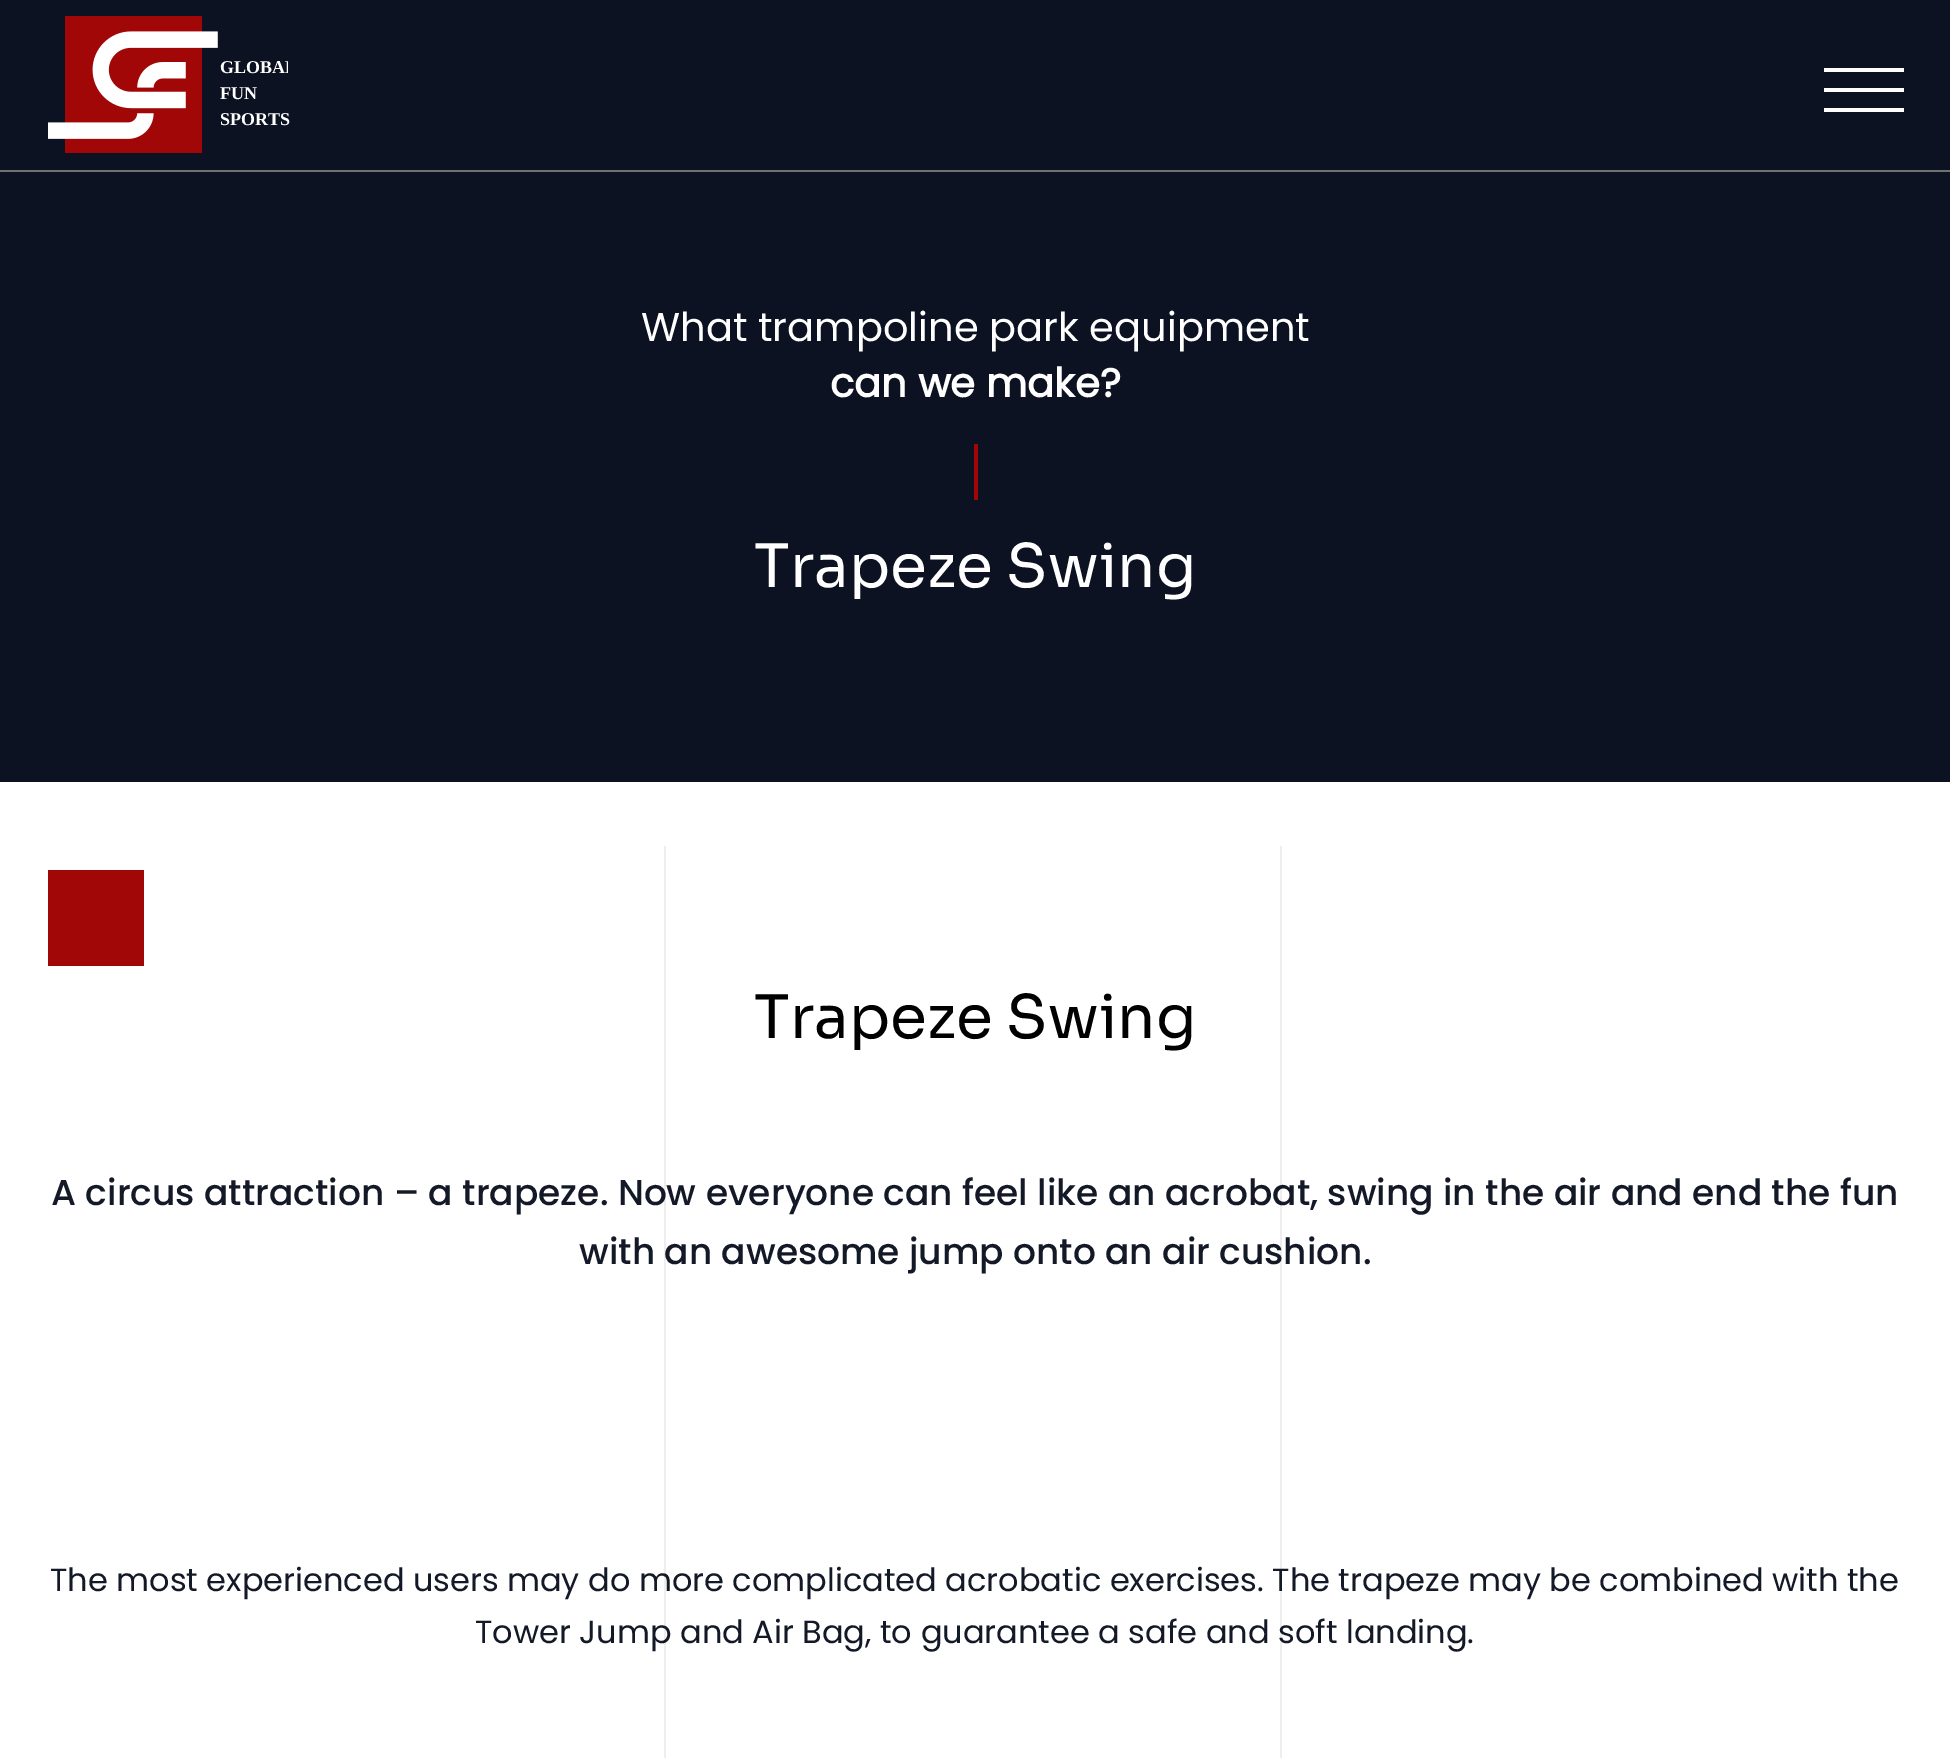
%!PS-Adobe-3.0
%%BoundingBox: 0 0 1950 1758
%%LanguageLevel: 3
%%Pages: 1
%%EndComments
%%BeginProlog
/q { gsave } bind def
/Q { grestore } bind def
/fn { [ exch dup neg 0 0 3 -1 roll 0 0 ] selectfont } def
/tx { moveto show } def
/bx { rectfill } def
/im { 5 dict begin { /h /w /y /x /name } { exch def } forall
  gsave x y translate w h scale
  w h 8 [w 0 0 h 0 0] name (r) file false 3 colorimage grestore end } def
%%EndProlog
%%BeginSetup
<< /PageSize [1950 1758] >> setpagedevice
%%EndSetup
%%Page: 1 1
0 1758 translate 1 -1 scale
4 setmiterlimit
1 setgray
0 0 1950 1758 bx
0.047 0.071 0.133 setrgbcolor
0 0 1950 170 bx
0.439 setgray
0 170 1950 2 bx
(image0.raw) 48 16 170 137 im
q
48 0 240 170 rectclip
/LiberationSerif-Bold 18 fn
1 setgray
(GLOBAL) 220 73 tx
Q
/LiberationSerif-Bold 18 fn
1 setgray
(FUN) 220 99 tx
(SPORTS) 220 125 tx
1824 88 80 4 bx
1824 68 80 4 bx
1824 108 80 4 bx
0.047 0.071 0.133 setrgbcolor
0 172 1950 610 bx
/Poppins-Regular 40 fn
1 setgray
(What trampoline park equipment) 641 341 tx
/Poppins-Bold 40 fn
(can we make?) 830 397 tx
0.631 0.027 0.027 setrgbcolor
974 444 4 56 bx
/Sora-Regular 60 fn
1 setgray
(Trapeze Swing) 754 587 tx
0.631 0.027 0.027 setrgbcolor
48 870 96 96 bx
0.933 setgray
664 846 2 912 bx
1280 846 2 912 bx
0 setgray
(Trapeze Swing) 754 1038 tx
/Poppins-Medium 36 fn
0.078 0.098 0.157 setrgbcolor
(A circus attraction – a trapeze. Now everyone can feel like an acrobat, swing in the air and end the fun) 51 1205 tx
(with an awesome jump onto an air cushion.) 579 1264 tx
/Poppins-Regular 32 fn
(The most experienced users may do more complicated acrobatic exercises. The trapeze may be combined with the) 50 1591 tx
(Tower Jump and Air Bag, to guarantee a safe and soft landing.) 475 1643 tx
showpage
%%EOF
